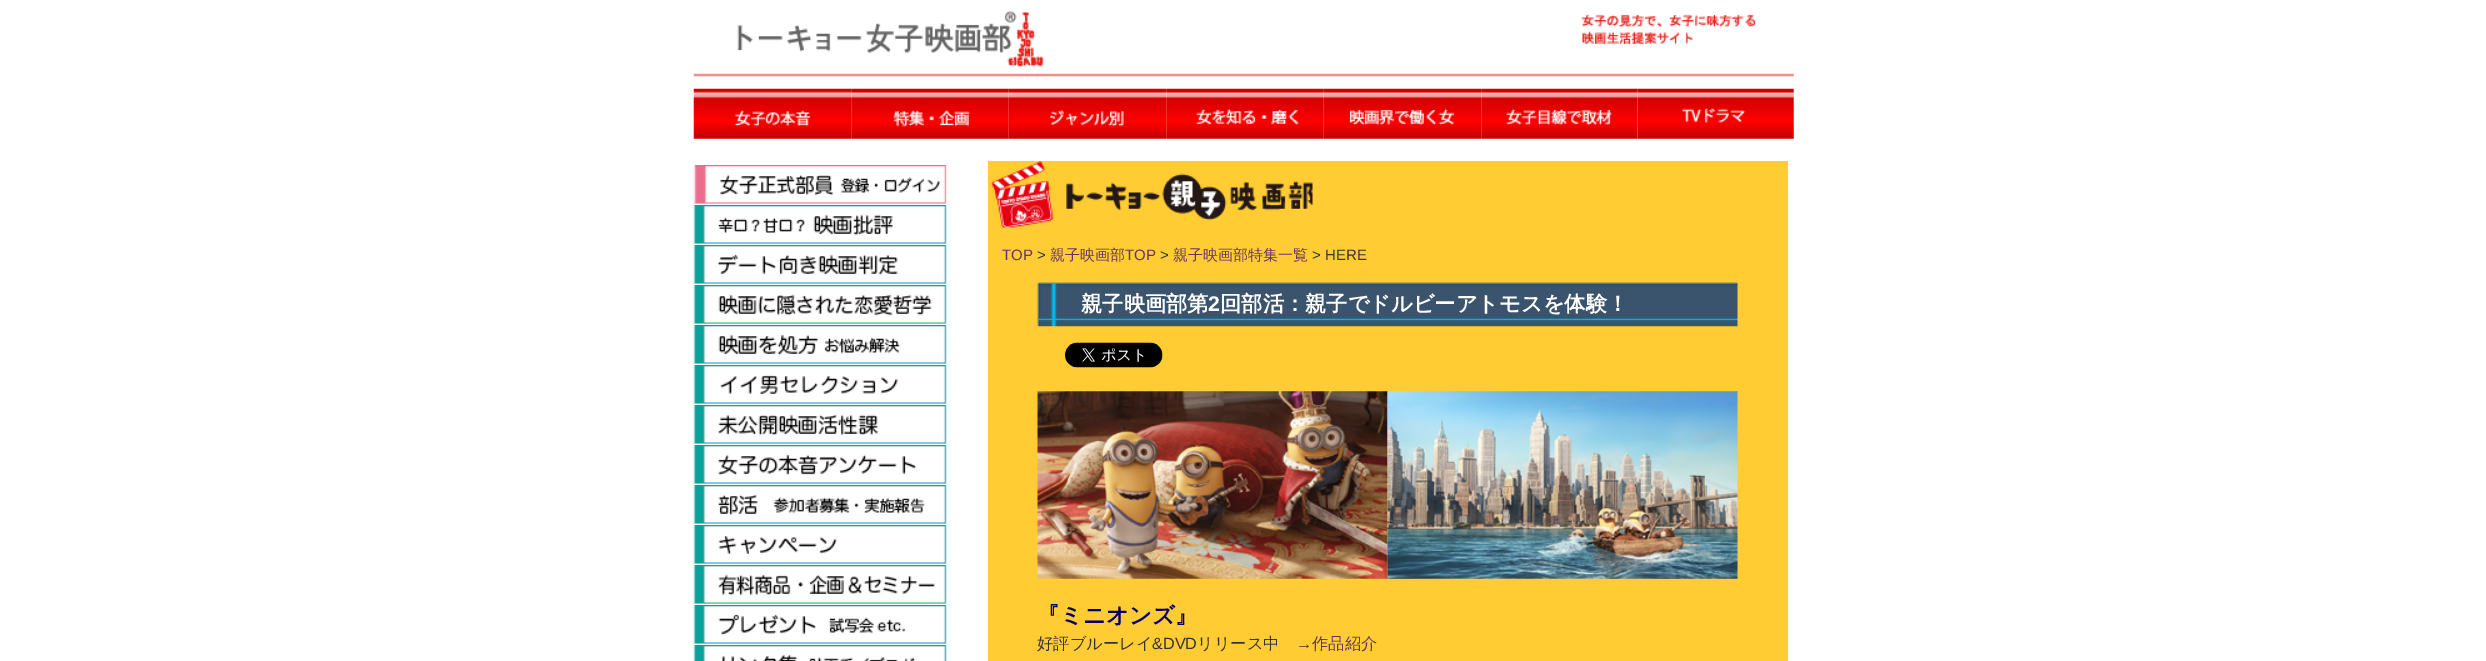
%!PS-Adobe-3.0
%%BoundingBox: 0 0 2486 661
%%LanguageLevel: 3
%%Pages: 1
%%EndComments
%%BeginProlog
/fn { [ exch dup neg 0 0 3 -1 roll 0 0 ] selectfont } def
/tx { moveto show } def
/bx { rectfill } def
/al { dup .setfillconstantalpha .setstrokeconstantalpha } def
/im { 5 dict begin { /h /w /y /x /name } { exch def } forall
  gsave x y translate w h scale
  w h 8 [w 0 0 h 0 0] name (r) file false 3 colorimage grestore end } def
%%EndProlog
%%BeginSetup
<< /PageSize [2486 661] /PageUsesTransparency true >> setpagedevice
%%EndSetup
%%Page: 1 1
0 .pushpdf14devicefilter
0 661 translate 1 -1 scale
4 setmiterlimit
1 setgray
0 0 2486 661 bx
(image0.raw) 693 11 1101 66 im
(image1.raw) 693 88 159 51 im
(image2.raw) 851 88 158 51 im
(image3.raw) 1008 88 159 51 im
(image4.raw) 1166 88 158 51 im
(image5.raw) 1323 88 159 51 im
(image6.raw) 1481 88 157 51 im
(image7.raw) 1637 88 157 51 im
(image8.raw) 693 165 254 39 im
0.25 al
694 203 252 1 bx
1 al
(image9.raw) 693 205 254 39 im
0.25 al
694 243 252 1 bx
1 al
(image10.raw) 693 245 254 39 im
0.25 al
694 283 252 1 bx
1 al
(image11.raw) 693 285 254 39 im
0.25 al
694 323 252 1 bx
1 al
(image12.raw) 693 325 254 39 im
0.25 al
694 363 252 1 bx
1 al
(image13.raw) 693 365 254 39 im
0.25 al
694 403 252 1 bx
1 al
(image14.raw) 693 405 254 39 im
0.25 al
694 443 252 1 bx
1 al
(image15.raw) 693 445 254 39 im
0.25 al
694 483 252 1 bx
1 al
(image16.raw) 693 485 254 39 im
0.25 al
694 523 252 1 bx
1 al
(image17.raw) 693 525 254 39 im
0.25 al
694 563 252 1 bx
1 al
(image18.raw) 693 565 254 39 im
0.25 al
694 603 252 1 bx
1 al
(image19.raw) 693 605 254 39 im
0.25 al
694 643 252 1 bx
1 al
(image20.raw) 693 645 254 16 im
1 0.8 0.2 setrgbcolor
988 161 800 500 bx
(image21.raw) 991 161 322 67 im
/LiberationSans-Regular 15 fn
0.4 0.2 0.4 setrgbcolor
(TOP) 1002 260 tx
0.2 setgray
(>) 1037 260 tx
/WenQuanYiZenHei-Medium 15 fn
0.4 0.2 0.4 setrgbcolor
(親子映画部) 1050 260 tx
/LiberationSans-Regular 15 fn
(TOP) 1125 260 tx
0.2 setgray
(>) 1160 260 tx
/WenQuanYiZenHei-Medium 15 fn
0.4 0.2 0.4 setrgbcolor
(親子映画部特集一覧) 1173 260 tx
/LiberationSans-Regular 15 fn
0.2 setgray
(> HERE) 1312 260 tx
(image22.raw) 1037 282 701 45 im
/WenQuanYiZenHei-Bold 21.25 fn
1 setgray
(親子映画部第) 1081 311 tx
/LiberationSans-Bold 21.25 fn
(2) 1208 311 tx
/WenQuanYiZenHei-Bold 21.25 fn
(回部活：親子でドルビーアトモスを体験！) 1220 311 tx
(image23.raw) 1065 342 98 26 im
(image24.raw) 1037 391 351 188 im
(image25.raw) 1387 391 351 188 im
/WenQuanYiZenHei-Bold 22.5 fn
0 0 0.4 setrgbcolor
(『ミニオンズ』) 1037 623 tx
/WenQuanYiZenHei-Medium 16.25 fn
0.2 setgray
(好評ブルーレイ) 1037 649 tx
/LiberationSans-Regular 16.25 fn
(&DVD) 1152 649 tx
/WenQuanYiZenHei-Medium 16.25 fn
(リリース中) 1197 649 tx
/LiberationSans-Regular 16.25 fn
(→) 1296 649 tx
/WenQuanYiZenHei-Medium 16.25 fn
0.4 0.2 0.4 setrgbcolor
(作品紹介) 1312 649 tx
.poppdf14devicefilter showpage
%%EOF
